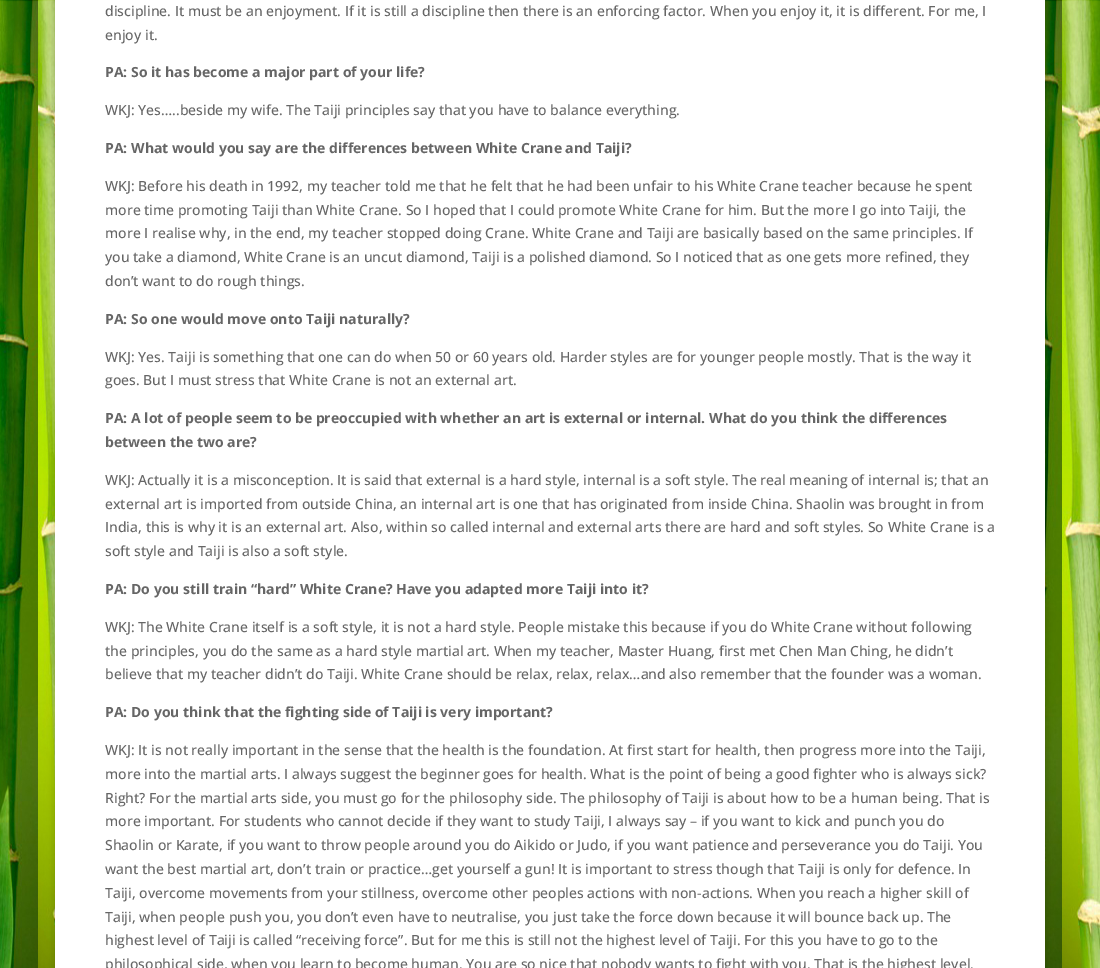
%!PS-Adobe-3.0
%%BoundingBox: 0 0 1100 968
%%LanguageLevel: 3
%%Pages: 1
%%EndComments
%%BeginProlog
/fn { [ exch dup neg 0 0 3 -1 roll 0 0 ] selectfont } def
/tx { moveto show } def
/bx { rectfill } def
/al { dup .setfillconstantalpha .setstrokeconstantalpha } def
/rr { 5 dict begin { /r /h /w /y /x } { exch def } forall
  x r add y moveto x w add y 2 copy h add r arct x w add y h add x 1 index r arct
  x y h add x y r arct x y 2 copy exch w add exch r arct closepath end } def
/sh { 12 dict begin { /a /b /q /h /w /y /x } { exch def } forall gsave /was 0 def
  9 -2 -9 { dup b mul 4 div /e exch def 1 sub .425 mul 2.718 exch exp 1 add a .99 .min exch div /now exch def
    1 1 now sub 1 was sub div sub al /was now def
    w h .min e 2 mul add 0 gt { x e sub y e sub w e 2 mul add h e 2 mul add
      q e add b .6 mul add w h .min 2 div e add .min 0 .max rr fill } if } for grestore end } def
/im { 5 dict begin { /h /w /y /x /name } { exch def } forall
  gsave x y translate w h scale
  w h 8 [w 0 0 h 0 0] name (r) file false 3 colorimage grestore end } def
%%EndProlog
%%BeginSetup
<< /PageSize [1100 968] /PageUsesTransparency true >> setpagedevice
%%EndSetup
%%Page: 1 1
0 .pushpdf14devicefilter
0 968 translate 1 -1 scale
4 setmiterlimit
1 setgray
0 0 1100 968 bx
(image0.raw) 0 0 1100 968 im
0 setgray
55 -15 990 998 0 5 0.2 sh
1 setgray
55 0 990 968 bx
/OpenSans-Medium 14 fn
0.4 setgray
(discipline. It must be an enjoyment. If it is still a discipline then there is an enforcing factor. When you enjoy it, it is different. For me, I) 105 16 tx
(enjoy it.) 105 40 tx
/OpenSans-Bold 14 fn
(PA: So it has become a major part of your life?) 105 77 tx
/OpenSans-Medium 14 fn
(WKJ: Yes…..beside my wife. The Taiji principles say that you have to balance everything.) 105 115 tx
/OpenSans-Bold 14 fn
(PA: What would you say are the differences between White Crane and Taiji?) 105 153 tx
/OpenSans-Medium 14 fn
(WKJ: Before his death in 1992, my teacher told me that he felt that he had been unfair to his White Crane teacher because he spent) 105 191 tx
(more time promoting Taiji than White Crane. So I hoped that I could promote White Crane for him. But the more I go into Taiji, the) 105 215 tx
(more I realise why, in the end, my teacher stopped doing Crane. White Crane and Taiji are basically based on the same principles. If) 105 238 tx
(you take a diamond, White Crane is an uncut diamond, Taiji is a polished diamond. So I noticed that as one gets more refined, they) 105 262 tx
(don’t want to do rough things.) 105 286 tx
/OpenSans-Bold 14 fn
(PA: So one would move onto Taiji naturally?) 105 324 tx
/OpenSans-Medium 14 fn
(WKJ: Yes. Taiji is something that one can do when 50 or 60 years old. Harder styles are for younger people mostly. That is the way it) 105 362 tx
(goes. But I must stress that White Crane is not an external art.) 105 385 tx
/OpenSans-Bold 14 fn
(PA: A lot of people seem to be preoccupied with whether an art is external or internal. What do you think the differences) 105 423 tx
(between the two are?) 105 447 tx
/OpenSans-Medium 14 fn
(WKJ: Actually it is a misconception. It is said that external is a hard style, internal is a soft style. The real meaning of internal is; that an) 105 485 tx
(external art is imported from outside China, an internal art is one that has originated from inside China. Shaolin was brought in from) 105 509 tx
(India, this is why it is an external art. Also, within so called internal and external arts there are hard and soft styles. So White Crane is a) 105 532 tx
(soft style and Taiji is also a soft style.) 105 556 tx
/OpenSans-Bold 14 fn
(PA: Do you still train “hard” White Crane? Have you adapted more Taiji into it?) 105 594 tx
/OpenSans-Medium 14 fn
(WKJ: The White Crane itself is a soft style, it is not a hard style. People mistake this because if you do White Crane without following) 105 632 tx
(the principles, you do the same as a hard style martial art. When my teacher, Master Huang, first met Chen Man Ching, he didn’t) 105 656 tx
(believe that my teacher didn’t do Taiji. White Crane should be relax, relax, relax…and also remember that the founder was a woman.) 105 679 tx
/OpenSans-Bold 14 fn
(PA: Do you think that the fighting side of Taiji is very important?) 105 717 tx
/OpenSans-Medium 14 fn
(WKJ: It is not really important in the sense that the health is the foundation. At first start for health, then progress more into the Taiji,) 105 755 tx
(more into the martial arts. I always suggest the beginner goes for health. What is the point of being a good fighter who is always sick?) 105 779 tx
(Right? For the martial arts side, you must go for the philosophy side. The philosophy of Taiji is about how to be a human being. That is) 105 803 tx
(more important. For students who cannot decide if they want to study Taiji, I always say – if you want to kick and punch you do) 105 826 tx
(Shaolin or Karate, if you want to throw people around you do Aikido or Judo, if you want patience and perseverance you do Taiji. You) 105 850 tx
(want the best martial art, don’t train or practice…get yourself a gun! It is important to stress though that Taiji is only for defence. In) 105 874 tx
(Taiji, overcome movements from your stillness, overcome other peoples actions with non-actions. When you reach a higher skill of) 105 898 tx
(Taiji, when people push you, you don’t even have to neutralise, you just take the force down because it will bounce back up. The) 105 922 tx
(highest level of Taiji is called “receiving force”. But for me this is still not the highest level of Taiji. For this you have to go to the) 105 945 tx
(philosophical side, when you learn to become human. You are so nice that nobody wants to fight with you. That is the highest level.) 105 969 tx
.poppdf14devicefilter showpage
%%EOF
